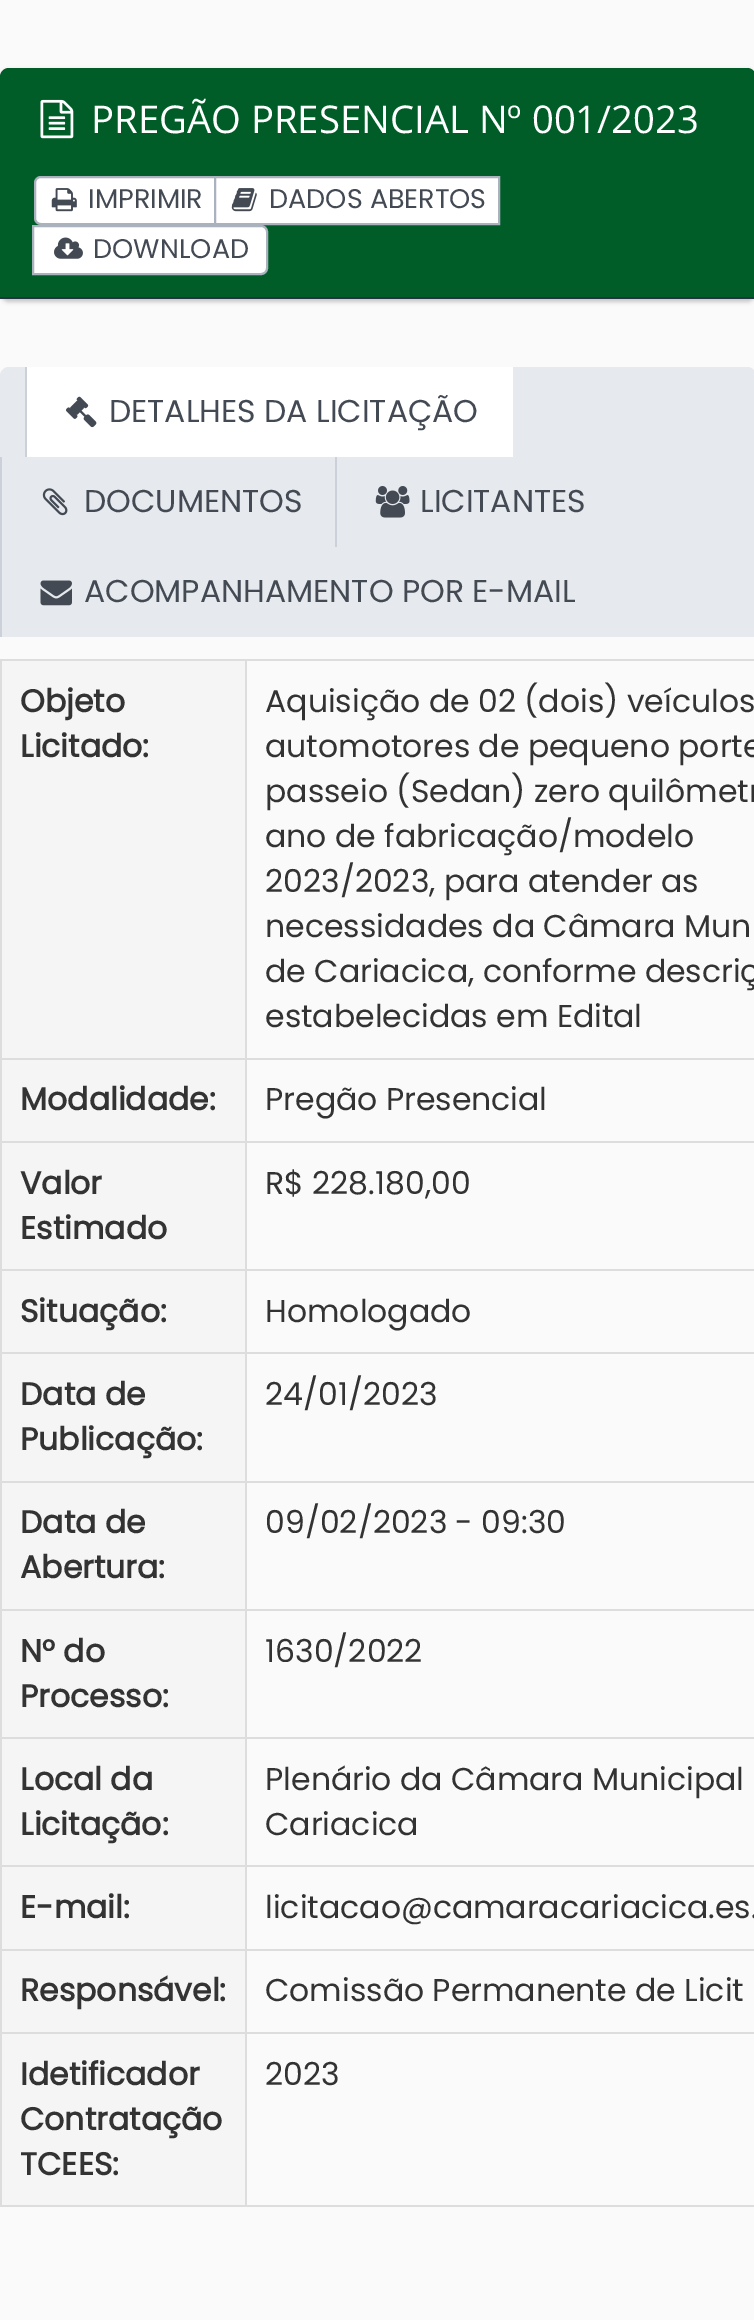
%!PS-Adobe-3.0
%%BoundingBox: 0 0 754 2320
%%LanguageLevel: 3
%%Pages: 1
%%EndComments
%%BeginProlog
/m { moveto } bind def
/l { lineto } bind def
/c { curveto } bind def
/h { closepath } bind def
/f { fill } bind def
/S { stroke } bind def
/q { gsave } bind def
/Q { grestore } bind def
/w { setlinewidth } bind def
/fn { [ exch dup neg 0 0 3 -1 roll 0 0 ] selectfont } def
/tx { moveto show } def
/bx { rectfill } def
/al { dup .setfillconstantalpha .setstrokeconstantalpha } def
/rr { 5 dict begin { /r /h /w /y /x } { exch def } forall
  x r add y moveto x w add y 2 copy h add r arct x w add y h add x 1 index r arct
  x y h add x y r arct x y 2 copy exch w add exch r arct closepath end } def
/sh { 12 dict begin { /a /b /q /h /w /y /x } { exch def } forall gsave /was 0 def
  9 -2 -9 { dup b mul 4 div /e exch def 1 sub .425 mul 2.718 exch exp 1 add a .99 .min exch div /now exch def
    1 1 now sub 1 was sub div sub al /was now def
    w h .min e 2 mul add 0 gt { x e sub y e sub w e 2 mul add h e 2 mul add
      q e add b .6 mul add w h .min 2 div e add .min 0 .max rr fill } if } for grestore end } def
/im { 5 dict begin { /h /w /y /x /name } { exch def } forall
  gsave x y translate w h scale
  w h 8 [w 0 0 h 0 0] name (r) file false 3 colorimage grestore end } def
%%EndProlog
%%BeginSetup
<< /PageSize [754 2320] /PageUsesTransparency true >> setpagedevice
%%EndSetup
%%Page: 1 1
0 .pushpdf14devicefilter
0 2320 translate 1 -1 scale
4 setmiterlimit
0.98 setgray
0 0 754 2320 bx
0 setgray
0 70 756 232 9 2 0.2 sh
0 0.365 0.157 setrgbcolor
9 68 m 747 68 l 752 68 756 72 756 77 c 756 299 l 0 299 l 0 77 l 0 72 4 68 9 68 c h f
0.141 0.196 0.259 setrgbcolor
0 297 754 2 bx
(image0.raw) 40 99 34 40 im
/OpenSans-Regular 38.25 fn
1 setgray
(PREGÃO PRESENCIAL Nº 001/2023) 91 133 tx
41 177 m 215 177 l 215 224 l 41 224 l 37.5 224 35 221.5 35 218 c 35 183 l 35 179.5 37.5 177 41 177 c h q f Q
0.667 0.698 0.741 setrgbcolor
2 w
S
(image1.raw) 51 188 26 24 im
/Poppins-Regular 27 fn
0.263 0.29 0.329 setrgbcolor
(IMPRIMIR) 88 208 tx
1 setgray
215 177 m 499 177 l 499 224 l 215 224 l h q f Q
0.667 0.698 0.741 setrgbcolor
S
(image2.raw) 231 188 26 24 im
0.263 0.29 0.329 setrgbcolor
(DADOS ABERTOS) 269 208 tx
1 setgray
33 226 m 261 226 l 264.5 226 267 228.5 267 232 c 267 268 l 267 271.5 264.5 274 261 274 c 33 274 l h q f Q
0.667 0.698 0.741 setrgbcolor
S
(image3.raw) 54 237 29 22 im
0.263 0.29 0.329 setrgbcolor
(DOWNLOAD) 93 258 tx
0.902 0.914 0.929 setrgbcolor
9 367 m 747 367 l 752 367 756 371 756 376 c 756 637 l 0 637 l 0 376 l 0 371 4 367 9 367 c h f
0.8 0.82 0.851 setrgbcolor
25 367 2 90 bx
1 setgray
27 367 486 90 bx
(image4.raw) 66 396 31 32 im
/Poppins-Regular 31.5 fn
0.263 0.29 0.329 setrgbcolor
(DETALHES DA LICITAÇÃO) 109 422 tx
0.8 0.82 0.851 setrgbcolor
0 457 2 180 bx
(image5.raw) 42 488 26 28 im
0.263 0.29 0.329 setrgbcolor
(DOCUMENTOS) 84 512 tx
0.8 0.82 0.851 setrgbcolor
335 457 2 90 bx
(image6.raw) 375 486 35 32 im
0.263 0.29 0.329 setrgbcolor
(LICITANTES) 420 512 tx
(image7.raw) 40 580 32 26 im
(ACOMPANHAMENTO POR E-MAIL) 84 602 tx
0.867 setgray
0 659 754 2 bx
0 2205 754 2 bx
0 659 2 1548 bx
0.961 setgray
2 661 243 397 bx
/Poppins-Bold 31.5 fn
0.2 setgray
(Objeto) 20 712 tx
(Licitado:) 20 757 tx
0.867 setgray
245 1058 509 2 bx
245 1141 509 2 bx
245 1269 509 2 bx
245 1352 509 2 bx
245 1481 509 2 bx
245 1609 509 2 bx
245 1737 509 2 bx
245 1865 509 2 bx
245 1949 509 2 bx
245 2032 509 2 bx
245 2032 2 175 bx
0 2032 248 2 bx
245 1949 2 85 bx
0 1949 248 2 bx
245 1865 2 86 bx
0 1865 248 2 bx
245 1737 2 131 bx
0 1737 248 2 bx
245 1609 2 130 bx
0 1609 248 2 bx
245 1481 2 130 bx
0 1481 248 2 bx
245 1352 2 131 bx
0 1352 248 2 bx
245 1269 2 86 bx
0 1269 248 2 bx
245 1141 2 130 bx
0 1141 248 2 bx
245 1058 2 85 bx
0 1058 248 2 bx
245 659 2 401 bx
/Poppins-Regular 31.5 fn
0.2 setgray
(Aquisição de 02 \(dois\) veículos) 265 712 tx
(automotores de pequeno porte) 265 757 tx
(passeio \(Sedan\) zero quilômetr) 265 802 tx
(ano de fabricação/modelo) 265 847 tx
(2023/2023, para atender as) 265 892 tx
(necessidades da Câmara Mun) 265 937 tx
(de Cariacica, conforme descriç) 265 982 tx
(estabelecidas em Edital) 265 1027 tx
0.961 setgray
2 1060 243 81 bx
/Poppins-Bold 31.5 fn
0.2 setgray
(Modalidade:) 20 1110 tx
/Poppins-Regular 31.5 fn
(Pregão Presencial) 265 1110 tx
0.961 setgray
2 1143 243 126 bx
/Poppins-Bold 31.5 fn
0.2 setgray
(Valor) 20 1194 tx
(Estimado) 20 1239 tx
/Poppins-Regular 31.5 fn
(R$ 228.180,00) 265 1194 tx
0.961 setgray
2 1271 243 81 bx
/Poppins-Bold 31.5 fn
0.2 setgray
(Situação:) 20 1322 tx
/Poppins-Regular 31.5 fn
(Homologado) 265 1322 tx
0.961 setgray
2 1354 243 127 bx
/Poppins-Bold 31.5 fn
0.2 setgray
(Data de) 20 1405 tx
(Publicação:) 20 1450 tx
/Poppins-Regular 31.5 fn
(24/01/2023) 265 1405 tx
0.961 setgray
2 1483 243 126 bx
/Poppins-Bold 31.5 fn
0.2 setgray
(Data de) 20 1533 tx
(Abertura:) 20 1578 tx
/Poppins-Regular 31.5 fn
(09/02/2023 - 09:30) 265 1533 tx
0.961 setgray
2 1611 243 126 bx
/Poppins-Bold 31.5 fn
0.2 setgray
(N° do) 20 1662 tx
(Processo:) 20 1707 tx
/Poppins-Regular 31.5 fn
(1630/2022) 265 1662 tx
0.961 setgray
2 1739 243 126 bx
/Poppins-Bold 31.5 fn
0.2 setgray
(Local da) 20 1790 tx
(Licitação:) 20 1835 tx
/Poppins-Regular 31.5 fn
(Plenário da Câmara Municipal) 265 1790 tx
(Cariacica) 265 1835 tx
0.961 setgray
2 1867 243 82 bx
/Poppins-Bold 31.5 fn
0.2 setgray
(E-mail:) 20 1918 tx
/Poppins-Regular 31.5 fn
(licitacao@camaracariacica.es.) 265 1918 tx
0.961 setgray
2 1951 243 81 bx
/Poppins-Bold 31.5 fn
0.2 setgray
(Responsável:) 20 2001 tx
/Poppins-Regular 31.5 fn
(Comissão Permanente de Licit) 265 2001 tx
0.961 setgray
2 2034 243 171 bx
/Poppins-Bold 31.5 fn
0.2 setgray
(Idetificador) 20 2085 tx
(Contratação) 20 2130 tx
(TCEES:) 20 2175 tx
/Poppins-Regular 31.5 fn
(2023) 265 2085 tx
.poppdf14devicefilter showpage
%%EOF
